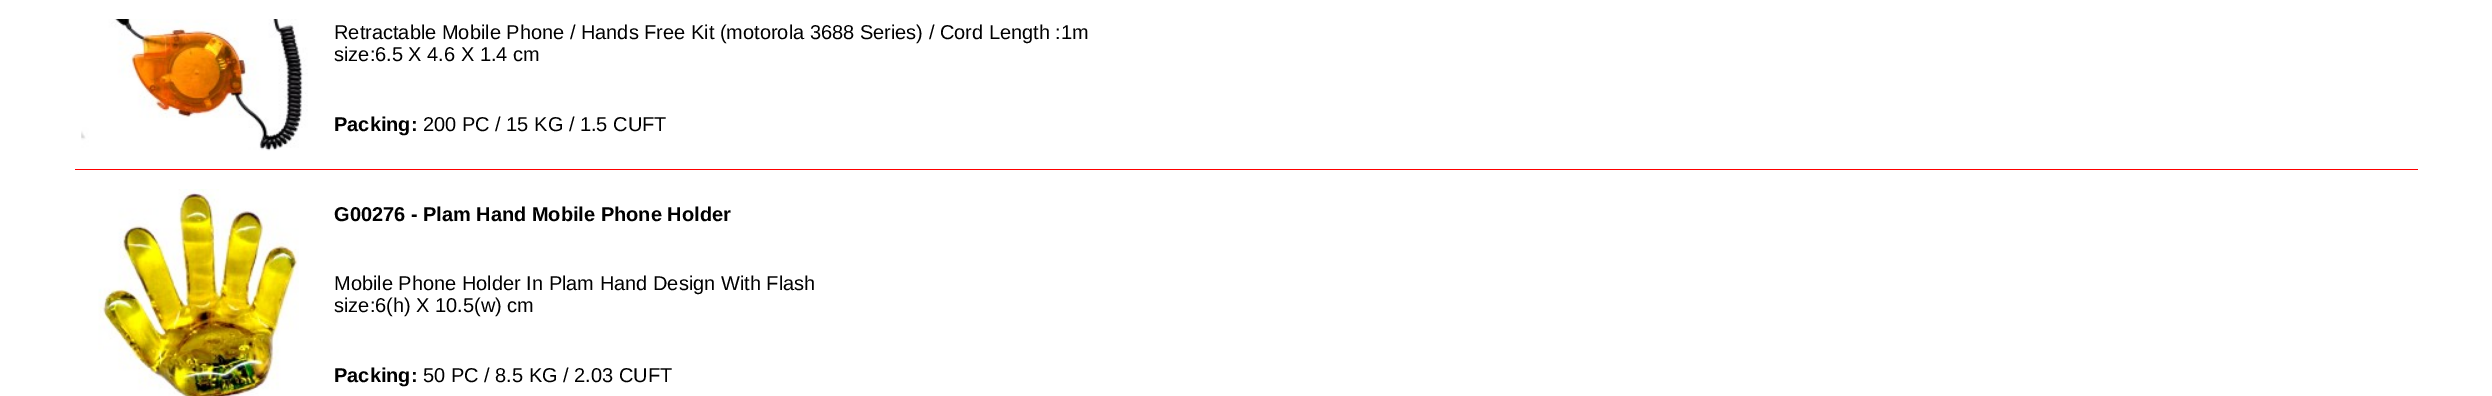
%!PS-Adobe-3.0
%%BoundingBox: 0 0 2492 396
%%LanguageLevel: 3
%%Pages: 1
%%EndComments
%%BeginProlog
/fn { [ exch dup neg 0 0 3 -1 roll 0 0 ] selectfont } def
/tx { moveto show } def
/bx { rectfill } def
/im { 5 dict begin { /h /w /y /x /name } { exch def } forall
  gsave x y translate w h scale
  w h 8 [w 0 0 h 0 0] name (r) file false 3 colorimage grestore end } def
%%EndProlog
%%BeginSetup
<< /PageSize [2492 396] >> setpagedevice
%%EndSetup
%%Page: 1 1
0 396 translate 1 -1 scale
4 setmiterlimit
1 setgray
0 0 2492 396 bx
(image0.raw) 81 19 227 132 im
/LiberationSans-Regular 20 fn
0 setgray
(Retractable Mobile Phone / Hands Free Kit \(motorola 3688 Series\) / Cord Length :1m) 334 39 tx
(size:6.5 X 4.6 X 1.4 cm) 334 61 tx
/LiberationSans-Bold 20 fn
(Packing:) 334 131 tx
/LiberationSans-Regular 20 fn
(200 PC / 15 KG / 1.5 CUFT) 423 131 tx
1 0 0 setrgbcolor
75 169 2343 1 bx
(image1.raw) 98 189 201 207 im
/LiberationSans-Bold 20 fn
0 setgray
(G00276 - Plam Hand Mobile Phone Holder) 334 221 tx
/LiberationSans-Regular 20 fn
(Mobile Phone Holder In Plam Hand Design With Flash) 334 290 tx
(size:6\(h\) X 10.5\(w\) cm) 334 312 tx
/LiberationSans-Bold 20 fn
(Packing:) 334 382 tx
/LiberationSans-Regular 20 fn
(50 PC / 8.5 KG / 2.03 CUFT) 423 382 tx
showpage
%%EOF
